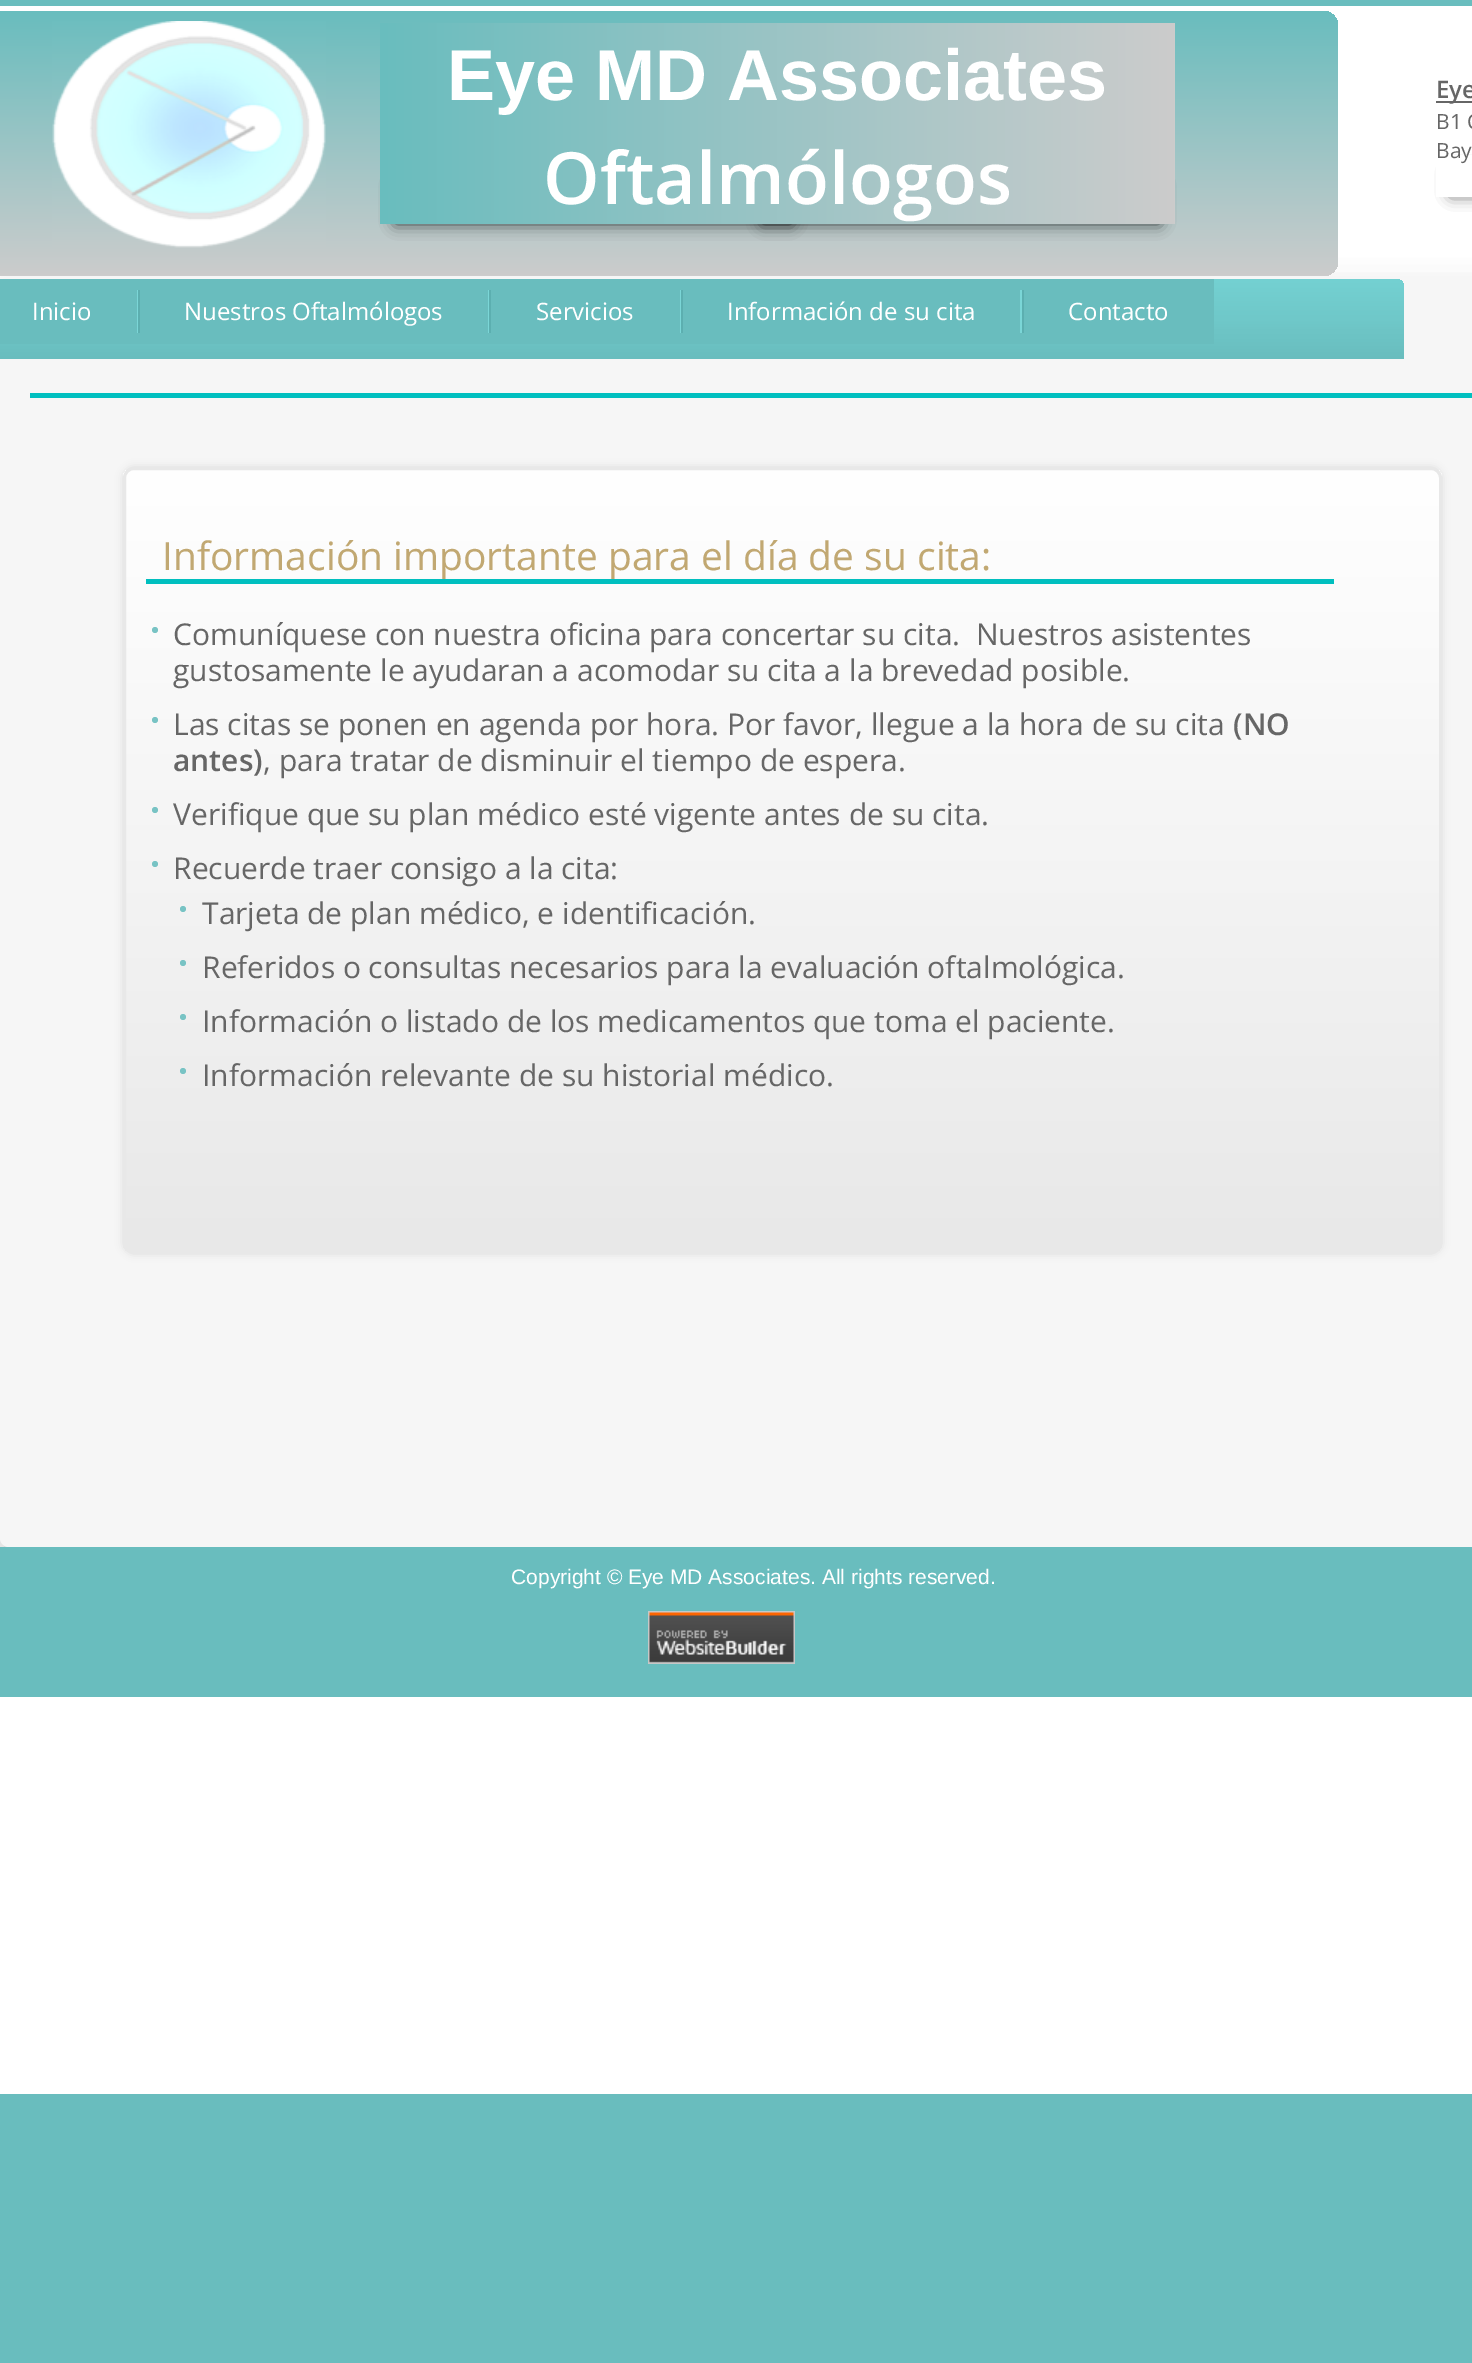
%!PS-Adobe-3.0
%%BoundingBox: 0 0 1472 2363
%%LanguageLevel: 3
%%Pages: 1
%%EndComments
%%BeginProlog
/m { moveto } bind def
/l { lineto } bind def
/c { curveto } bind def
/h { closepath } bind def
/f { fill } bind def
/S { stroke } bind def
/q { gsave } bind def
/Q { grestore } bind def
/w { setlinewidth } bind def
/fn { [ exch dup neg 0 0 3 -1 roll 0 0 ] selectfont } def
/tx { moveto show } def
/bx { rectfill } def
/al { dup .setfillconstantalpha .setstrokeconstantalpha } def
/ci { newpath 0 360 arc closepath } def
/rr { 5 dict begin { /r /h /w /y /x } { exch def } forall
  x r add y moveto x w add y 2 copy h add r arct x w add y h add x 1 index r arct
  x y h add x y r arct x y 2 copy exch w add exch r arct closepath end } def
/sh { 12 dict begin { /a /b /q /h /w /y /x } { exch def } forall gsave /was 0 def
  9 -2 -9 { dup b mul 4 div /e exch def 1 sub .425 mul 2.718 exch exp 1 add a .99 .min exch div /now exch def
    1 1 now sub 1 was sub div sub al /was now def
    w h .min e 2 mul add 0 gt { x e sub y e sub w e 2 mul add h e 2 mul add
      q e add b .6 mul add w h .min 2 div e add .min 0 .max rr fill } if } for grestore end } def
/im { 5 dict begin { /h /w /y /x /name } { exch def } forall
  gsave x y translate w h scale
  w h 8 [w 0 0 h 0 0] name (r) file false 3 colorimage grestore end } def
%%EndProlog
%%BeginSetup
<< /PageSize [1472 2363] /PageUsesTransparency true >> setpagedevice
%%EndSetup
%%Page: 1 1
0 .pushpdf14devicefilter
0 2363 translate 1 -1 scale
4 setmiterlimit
1 setgray
0 0 1472 2363 bx
0.412 0.741 0.745 setrgbcolor
0 2094 1472 269 bx
0 0 1472 6 bx
0 setgray
0 291 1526 1271 9 15 0.2 sh
0.965 setgray
9 276 m 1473 276 l 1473 1547 l 9 1547 l 4 1547 0 1543 0 1538 c 0 285 l 0 280 4 276 9 276 c h f
q -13 11 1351 265 15 rr clip newpath
<< /ShadingType 2 /ColorSpace /DeviceRGB /Coords [662 10 662 276] /Extend [true true] /Function << /FunctionType 2 /Domain [0 1] /C0 [0.412 0.741 0.745] /C1 [0.8 0.8 0.8] /N 1 >> >> shfill Q
(image0.raw) 52 21 274 227 im
0 setgray
395 183 397 41 0 7.5 0.7 sh
762 183 398 41 0 7.5 0.7 sh
q 380 23 m 1175 23 l 1175 224 l 380 224 l h clip newpath
<< /ShadingType 2 /ColorSpace /DeviceRGB /Coords [380 123 1175 123] /Extend [true true] /Function << /FunctionType 2 /Domain [0 1] /C0 [0.412 0.741 0.745] /C1 [0.8 0.8 0.8] /N 1 >> >> shfill Q
/LiberationSans-Bold 72 fn
1 setgray
(Eye MD Associates) 447 100 tx
/OpenSans-SemiBold 72 fn
(Oftalmólogos) 543 204 tx
0 setgray
1451 171 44 24 0 7.5 0.7 sh
1 setgray
1436 155 36 42 bx
0.4 setgray
1436 101 36 2 bx
/OpenSans-SemiBold 24 fn
(Eye) 1436 98 tx
/OpenSans-Regular 21 fn
(B1 C) 1436 129 tx
(Bay) 1436 158 tx
q 0 279 m 1396 279 l 1400.5 279 1404 282.5 1404 287 c 1404 359 l 0 359 l h clip newpath
<< /ShadingType 2 /ColorSpace /DeviceRGB /Coords [695 279 695 359] /Extend [true true] /Function << /FunctionType 3 /Domain [0 1] /Functions [<< /FunctionType 2 /Domain [0 1] /C0 [0.455 0.82 0.824] /C1 [0.435 0.784 0.788] /N 1 >> << /FunctionType 2 /Domain [0 1] /C0 [0.435 0.784 0.788] /C1 [0.412 0.741 0.745] /N 1 >>] /Bounds [0.51] /Encode [0 1 0 1] >> >> shfill Q
0.412 0.741 0.745 setrgbcolor
0 279 1214 65 bx
0.482 0.839 0.843 setrgbcolor
137 290 1 43 bx
/OpenSans-Regular 24 fn
1 setgray
(Inicio) 32 320 tx
0.482 0.839 0.843 setrgbcolor
488 290 1 43 bx
0.361 0.686 0.69 setrgbcolor
138 290 2 43 bx
1 setgray
(Nuestros Oftalmólogos) 184 320 tx
0.482 0.839 0.843 setrgbcolor
680 290 1 43 bx
0.361 0.686 0.69 setrgbcolor
489 290 2 43 bx
1 setgray
(Servicios) 536 320 tx
0.482 0.839 0.843 setrgbcolor
1020 290 2 43 bx
0.361 0.686 0.69 setrgbcolor
681 290 2 43 bx
1 setgray
(Información de su cita) 727 320 tx
0.361 0.686 0.69 setrgbcolor
1022 290 2 43 bx
1 setgray
(Contacto) 1068 320 tx
0 0.749 0.749 setrgbcolor
30 393 1442 5 bx
0 setgray
123 467 1319 787 11 4 0.1 sh
q
123 467 1319 787 11 rr clip newpath
q 123 470 m 1442 470 l 1442 1251 l 123 1251 l h clip newpath
<< /ShadingType 2 /ColorSpace /DeviceRGB /Coords [782 469 782 1251] /Extend [true true] /Function << /FunctionType 2 /Domain [0 1] /C0 [1 1 1] /C1 [0.91 0.91 0.91] /N 1 >> >> shfill Q
Q
0.91 setgray
3 w
124.5 468.5 1316 784 9.5 rr S
/OpenSans-Regular 39 fn
0.757 0.659 0.447 setrgbcolor
(Información importante para el día de su cita:) 162 570 tx
0 0.749 0.749 setrgbcolor
146 579 1188 5 bx
0.471 0.765 0.769 setrgbcolor
155 630 3 ci f
/OpenSans-Regular 30 fn
0.4 setgray
(Comuníquese con nuestra oficina para concertar su cita.  Nuestros asistentes) 173 645 tx
(gustosamente le ayudaran a acomodar su cita a la brevedad posible.) 173 681 tx
0.471 0.765 0.769 setrgbcolor
155 720 3 ci f
0.4 setgray
(Las citas se ponen en agenda por hora. Por favor, llegue a la hora de su cita) 173 735 tx
/OpenSans-SemiBold 30 fn
(\(NO) 1233 735 tx
(antes\)) 173 771 tx
/OpenSans-Regular 30 fn
(, para tratar de disminuir el tiempo de espera.) 263 771 tx
0.471 0.765 0.769 setrgbcolor
155 810 3 ci f
0.4 setgray
(Verifique que su plan médico esté vigente antes de su cita.) 173 825 tx
0.471 0.765 0.769 setrgbcolor
155 864 3 ci f
0.4 setgray
(Recuerde traer consigo a la cita:) 173 879 tx
0.471 0.765 0.769 setrgbcolor
183 909 3 ci f
0.4 setgray
(Tarjeta de plan médico, e identificación.) 202 924 tx
0.471 0.765 0.769 setrgbcolor
183 963 3 ci f
0.4 setgray
(Referidos o consultas necesarios para la evaluación oftalmológica.) 202 978 tx
0.471 0.765 0.769 setrgbcolor
183 1017 3 ci f
0.4 setgray
(Información o listado de los medicamentos que toma el paciente.) 202 1032 tx
0.471 0.765 0.769 setrgbcolor
183 1071 3 ci f
0.4 setgray
(Información relevante de su historial médico.) 202 1086 tx
0.412 0.741 0.745 setrgbcolor
0 1547 1472 150 bx
/LiberationSans-Regular 21 fn
1 setgray
(Copyright © Eye MD Associates. All rights reserved.) 511 1584 tx
(image1.raw) 648 1611 147 53 im
.poppdf14devicefilter showpage
%%EOF
